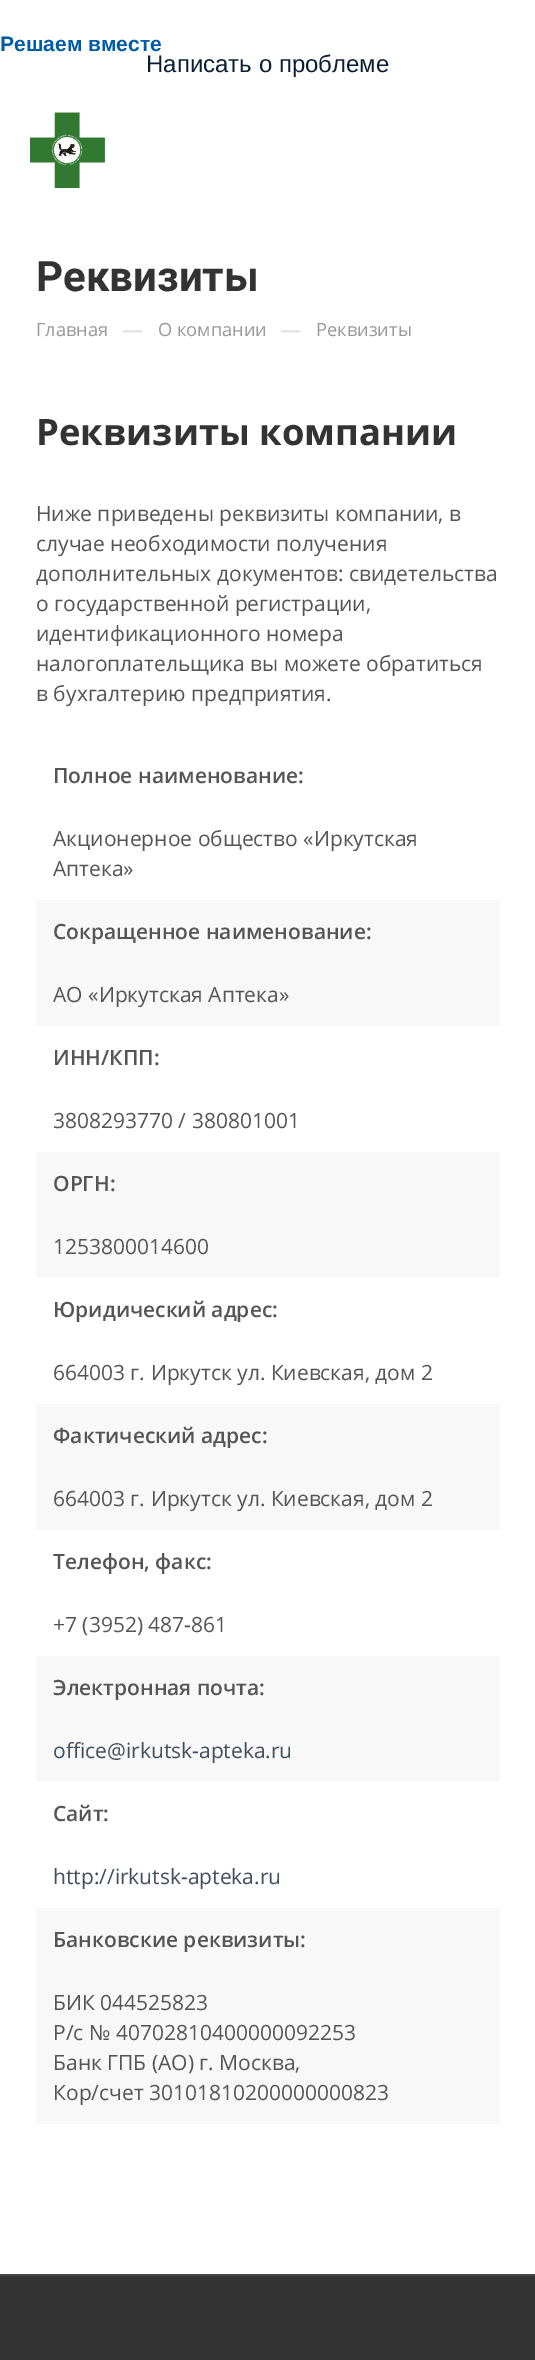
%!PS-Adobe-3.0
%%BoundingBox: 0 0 535 2360
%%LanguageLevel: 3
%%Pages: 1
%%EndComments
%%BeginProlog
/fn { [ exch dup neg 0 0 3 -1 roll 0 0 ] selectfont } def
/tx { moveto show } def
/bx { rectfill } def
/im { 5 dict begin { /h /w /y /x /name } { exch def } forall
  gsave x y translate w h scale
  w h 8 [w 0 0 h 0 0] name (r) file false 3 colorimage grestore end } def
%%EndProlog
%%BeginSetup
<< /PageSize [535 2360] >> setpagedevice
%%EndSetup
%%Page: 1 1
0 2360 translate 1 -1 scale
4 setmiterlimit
1 setgray
0 0 535 2360 bx
/LiberationSans-Bold 21 fn
0 0.361 0.663 setrgbcolor
(Решаем вместе) 0 51 tx
/LiberationSans-Regular 24 fn
0.043 0.122 0.2 setrgbcolor
(Написать о проблеме) 146 72 tx
(image0.raw) 30 112 75 76 im
/Roboto-Bold 42 fn
0.2 setgray
(Реквизиты) 36 291 tx
/OpenSans-Regular 18.25 fn
0.6 setgray
(Главная) 36 336 tx
/OpenSans-Regular 21 fn
0.867 setgray
(—) 122 337 tx
/OpenSans-Regular 18.25 fn
0.6 setgray
(О компании) 158 336 tx
/OpenSans-Regular 21 fn
0.867 setgray
(—) 280 337 tx
/OpenSans-Regular 18.25 fn
0.6 setgray
(Реквизиты) 316 336 tx
/OpenSans-Bold 36.4 fn
0.2 setgray
(Реквизиты компании) 36 445 tx
/OpenSans-Regular 21 fn
0.333 setgray
(Ниже приведены реквизиты компании, в) 36 521 tx
(случае необходимости получения) 36 551 tx
(дополнительных документов: свидетельства) 36 581 tx
(о государственной регистрации,) 36 611 tx
(идентификационного номера) 36 641 tx
(налогоплательщика вы можете обратиться) 36 671 tx
(в бухгалтерию предприятия.) 36 701 tx
/OpenSans-SemiBold 21 fn
(Полное наименование:) 53 783 tx
/OpenSans-Regular 21 fn
(Акционерное общество «Иркутская) 53 846 tx
(Аптека») 53 876 tx
0.973 setgray
36 900 464 126 bx
/OpenSans-SemiBold 21 fn
0.333 setgray
(Сокращенное наименование:) 53 939 tx
/OpenSans-Regular 21 fn
(АО «Иркутская Аптека») 53 1002 tx
/OpenSans-SemiBold 21 fn
(ИНН/КПП:) 53 1065 tx
/OpenSans-Regular 21 fn
(3808293770 / 380801001) 53 1128 tx
0.973 setgray
36 1152 464 126 bx
/OpenSans-SemiBold 21 fn
0.333 setgray
(ОРГН:) 53 1191 tx
/OpenSans-Regular 21 fn
(1253800014600) 53 1254 tx
/OpenSans-SemiBold 21 fn
(Юридический адрес:) 53 1317 tx
/OpenSans-Regular 21 fn
(664003 г. Иркутск ул. Киевская, дом 2) 53 1380 tx
0.973 setgray
36 1404 464 126 bx
/OpenSans-SemiBold 21 fn
0.333 setgray
(Фактический адрес:) 53 1443 tx
/OpenSans-Regular 21 fn
(664003 г. Иркутск ул. Киевская, дом 2) 53 1506 tx
/OpenSans-SemiBold 21 fn
(Телефон, факс:) 53 1569 tx
/OpenSans-Regular 21 fn
(+7 \(3952\) 487-861) 53 1632 tx
0.973 setgray
36 1656 464 126 bx
/OpenSans-SemiBold 21 fn
0.333 setgray
(Электронная почта:) 53 1695 tx
/OpenSans-Regular 21 fn
0.259 0.31 0.376 setrgbcolor
(office@irkutsk-apteka.ru) 53 1758 tx
/OpenSans-SemiBold 21 fn
0.333 setgray
(Сайт:) 53 1821 tx
/OpenSans-Regular 21 fn
0.259 0.31 0.376 setrgbcolor
(http://irkutsk-apteka.ru) 53 1884 tx
0.973 setgray
36 1908 464 216 bx
/OpenSans-SemiBold 21 fn
0.333 setgray
(Банковские реквизиты:) 53 1947 tx
/OpenSans-Regular 21 fn
(БИК 044525823) 53 2010 tx
(Р/с № 40702810400000092253) 53 2040 tx
(Банк ГПБ \(АО\) г. Москва,) 53 2070 tx
(Кор/счет 30101810200000000823) 53 2100 tx
0.2 setgray
0 2276 535 84 bx
0.278 setgray
0 2274 535 2 bx
showpage
%%EOF
